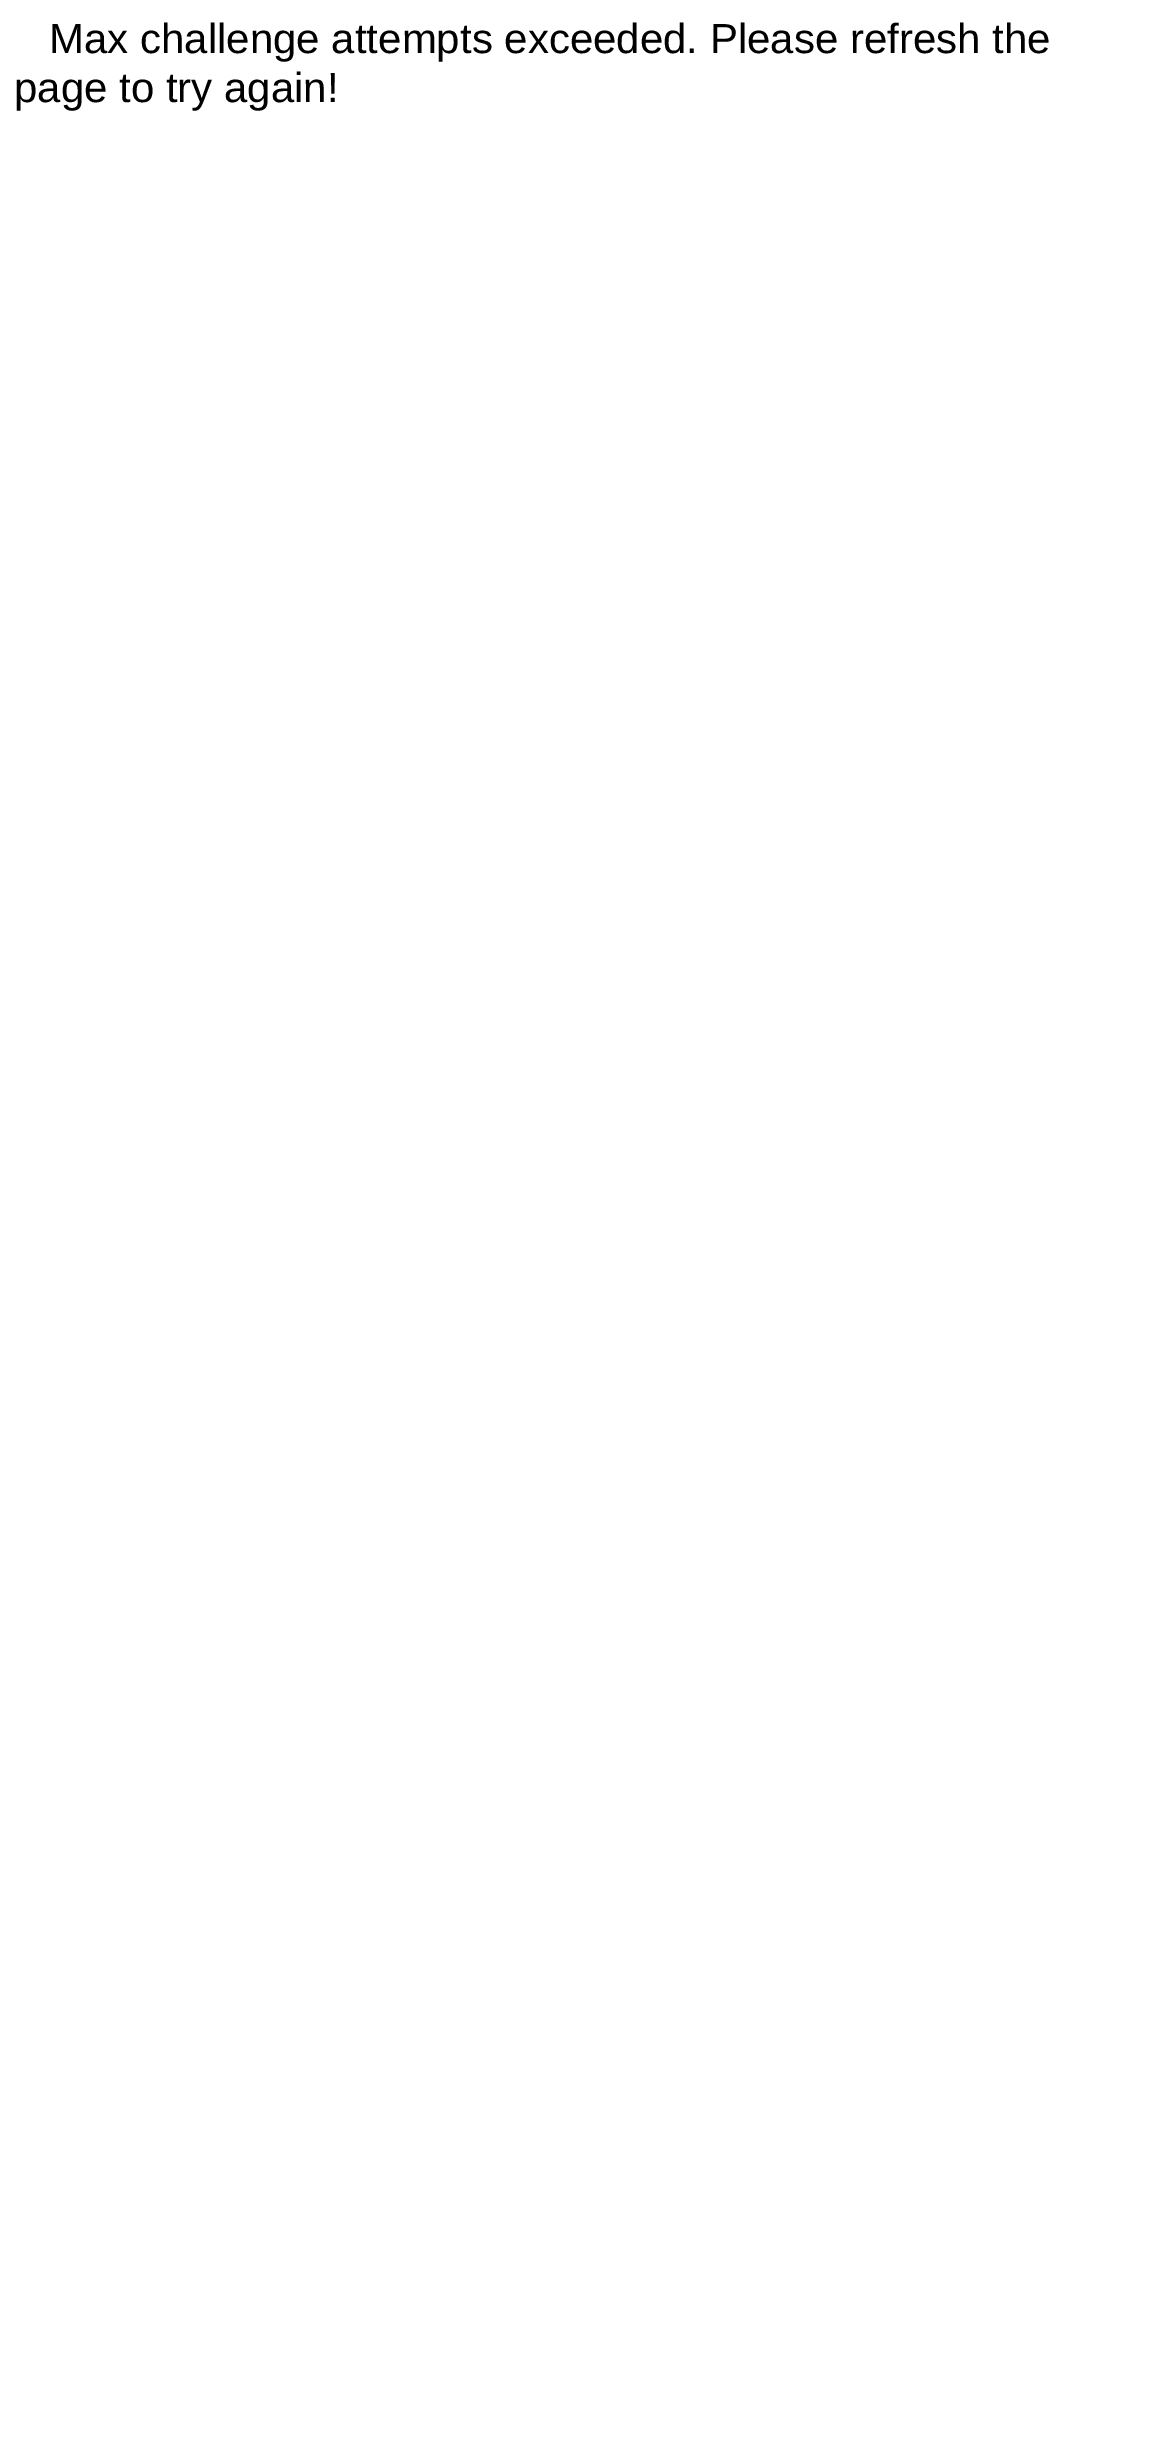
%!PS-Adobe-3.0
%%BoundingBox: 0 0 1154 2456
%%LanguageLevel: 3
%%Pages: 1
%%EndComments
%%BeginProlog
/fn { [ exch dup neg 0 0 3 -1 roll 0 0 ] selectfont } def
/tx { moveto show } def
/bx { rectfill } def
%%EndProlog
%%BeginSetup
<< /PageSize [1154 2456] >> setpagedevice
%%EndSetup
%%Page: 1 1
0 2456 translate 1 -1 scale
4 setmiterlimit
1 setgray
0 0 1154 2456 bx
/LiberationSans-Regular 42 fn
0 setgray
(Max challenge attempts exceeded. Please refresh the) 49 53 tx
(page to try again!) 14 102 tx
showpage
%%EOF
